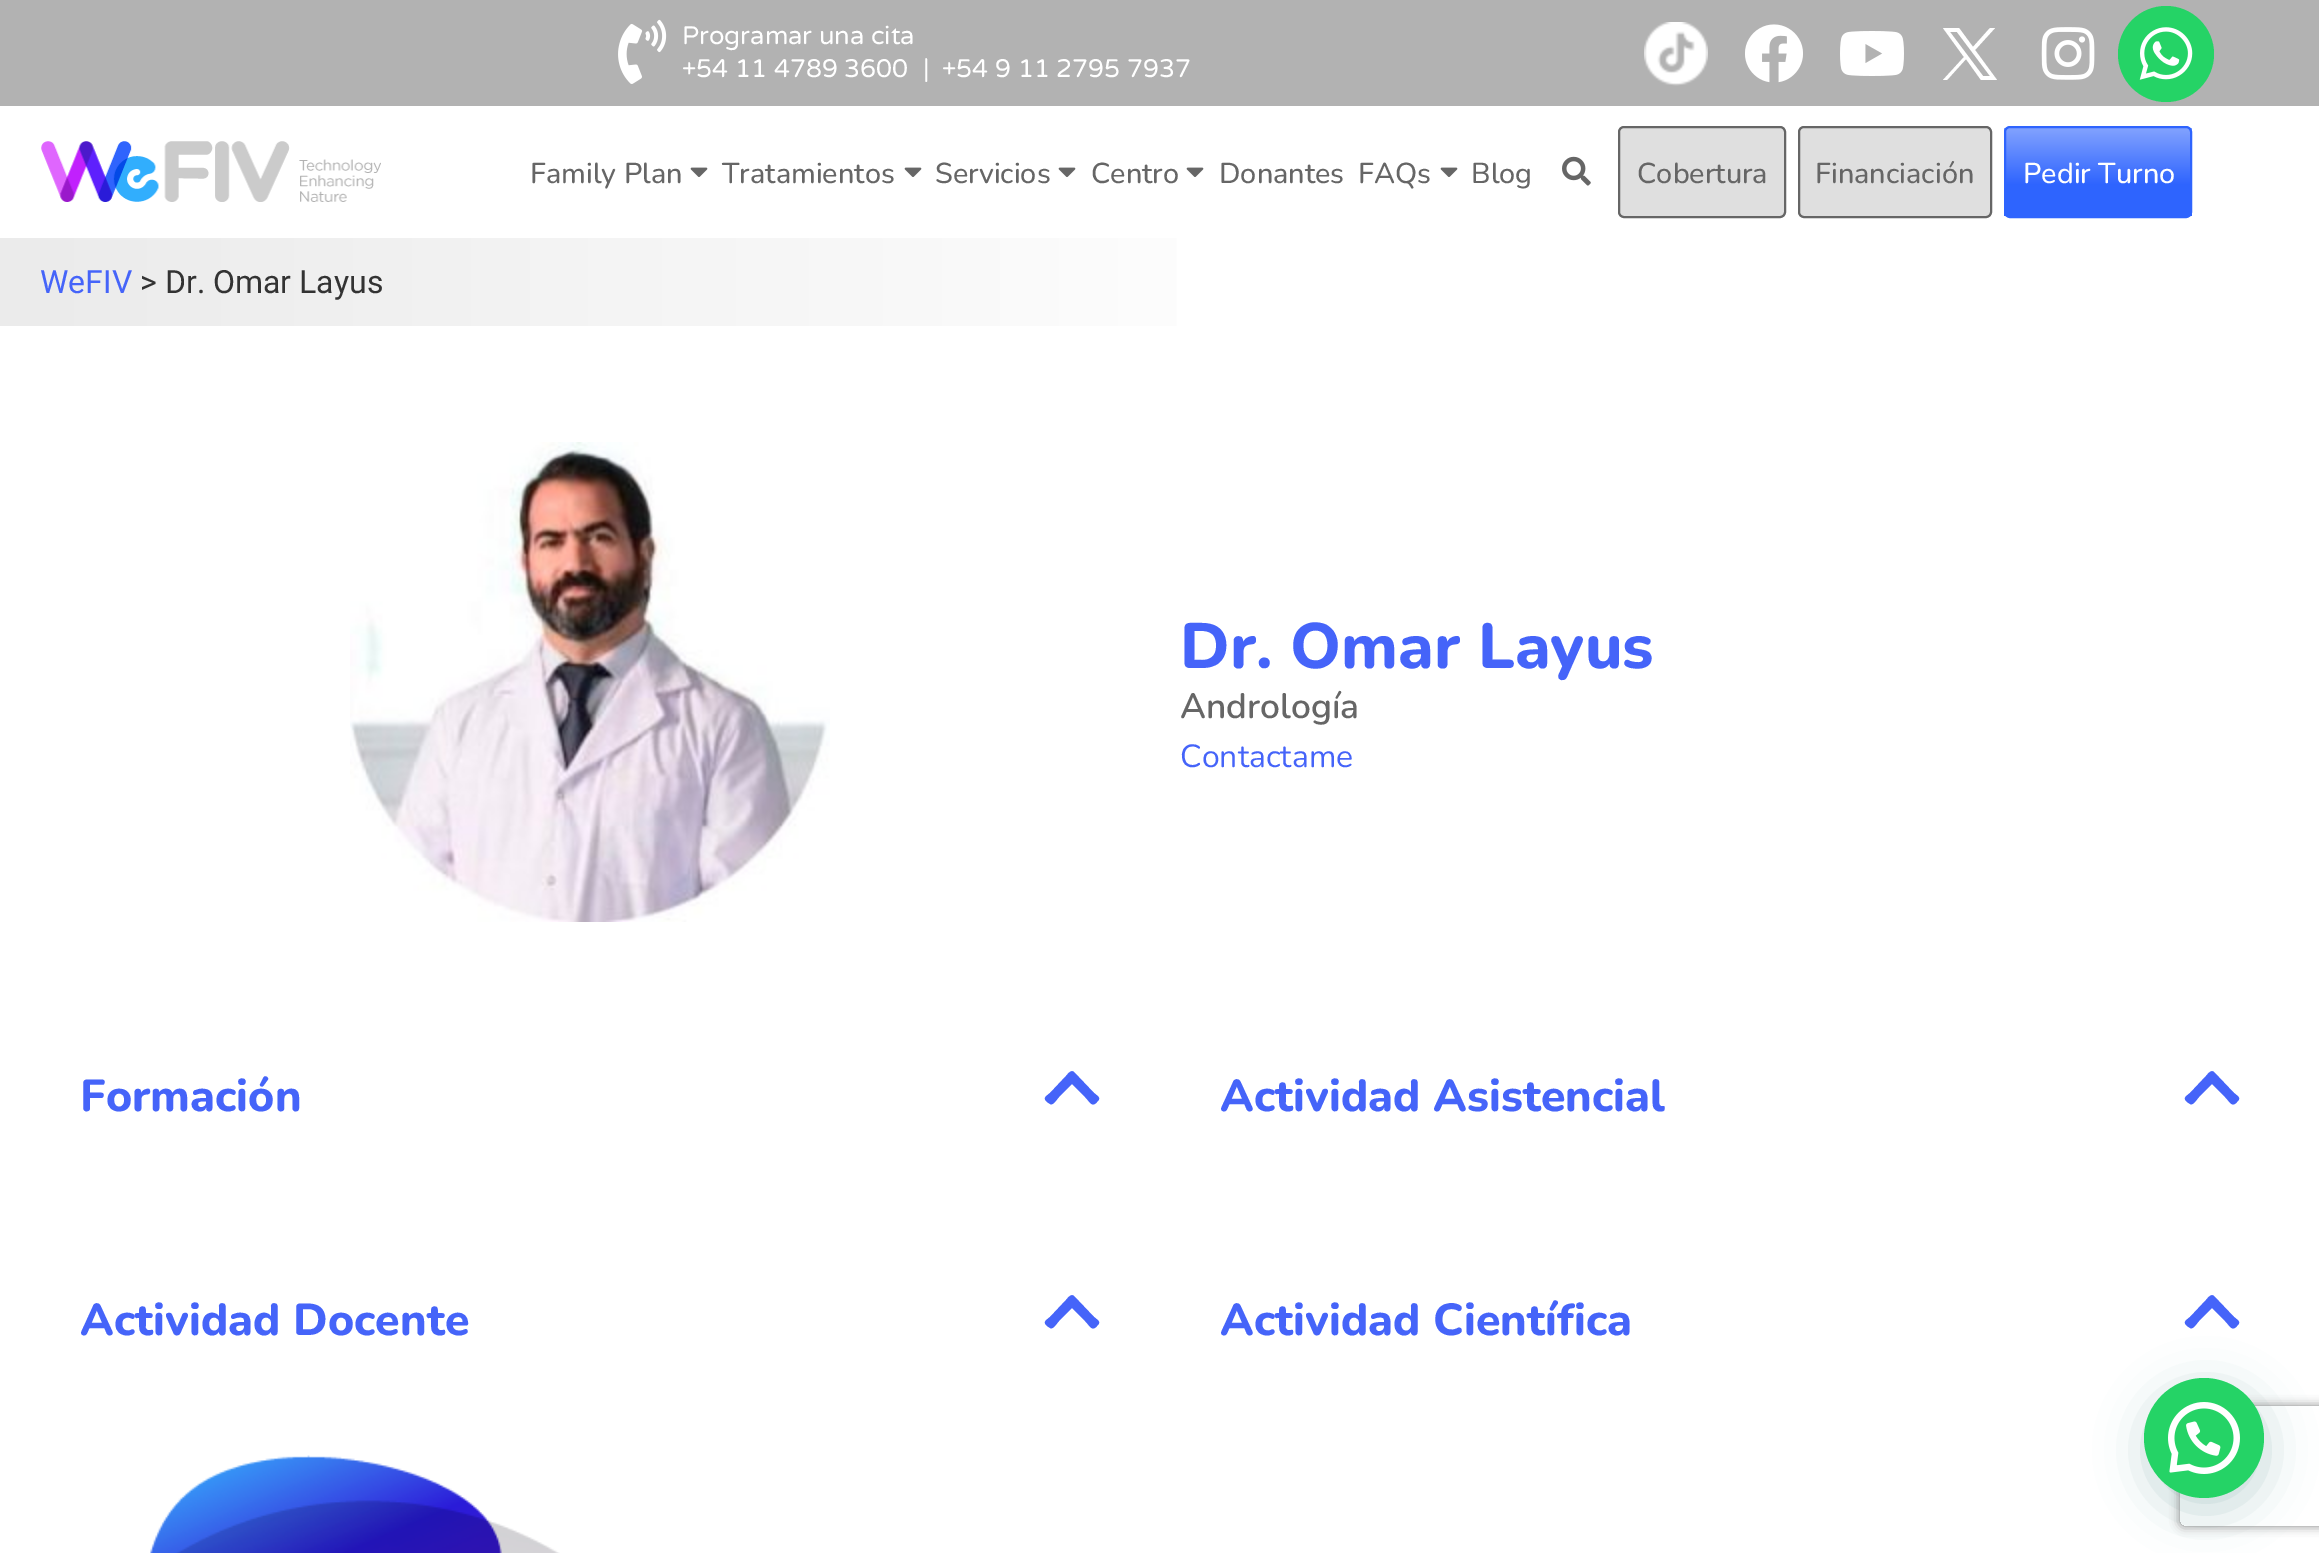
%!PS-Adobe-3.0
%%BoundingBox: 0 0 2319 1553
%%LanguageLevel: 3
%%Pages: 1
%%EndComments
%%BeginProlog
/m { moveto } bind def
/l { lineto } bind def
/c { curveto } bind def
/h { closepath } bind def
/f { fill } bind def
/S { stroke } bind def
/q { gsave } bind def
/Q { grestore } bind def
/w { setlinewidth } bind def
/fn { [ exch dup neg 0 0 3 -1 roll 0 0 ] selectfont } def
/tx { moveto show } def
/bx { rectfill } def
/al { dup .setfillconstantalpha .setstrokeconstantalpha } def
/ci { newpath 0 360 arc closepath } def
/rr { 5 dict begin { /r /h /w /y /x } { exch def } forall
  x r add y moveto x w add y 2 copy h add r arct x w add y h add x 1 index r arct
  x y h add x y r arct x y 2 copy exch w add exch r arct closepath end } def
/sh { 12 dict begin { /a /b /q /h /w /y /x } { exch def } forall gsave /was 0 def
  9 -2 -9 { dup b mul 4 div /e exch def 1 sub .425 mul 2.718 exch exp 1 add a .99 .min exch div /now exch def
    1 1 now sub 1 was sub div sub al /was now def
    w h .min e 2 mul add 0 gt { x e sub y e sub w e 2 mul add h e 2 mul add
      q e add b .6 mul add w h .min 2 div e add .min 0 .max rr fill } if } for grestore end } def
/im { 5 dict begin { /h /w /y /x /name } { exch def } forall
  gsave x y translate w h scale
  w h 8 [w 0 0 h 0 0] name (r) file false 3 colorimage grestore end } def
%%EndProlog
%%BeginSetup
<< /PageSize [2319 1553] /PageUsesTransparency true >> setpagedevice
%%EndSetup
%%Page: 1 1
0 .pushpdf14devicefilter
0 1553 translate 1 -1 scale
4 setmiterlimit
1 setgray
0 0 2319 1553 bx
0.698 setgray
0 0 2319 106 bx
(image0.raw) 618 19 49 65 im
/VarelaRound-Regular 25.5 fn
1 setgray
(Programar una cita) 682 44 tx
(+54 11 4789 3600) 682 77 tx
(|) 923 77 tx
(+54 9 11 2795 7937) 942 77 tx
(image1.raw) 1644 22 64 64 im
(image2.raw) 1745 24 58 59 im
(image3.raw) 1840 31 64 45 im
1943 28 m 1964 57 l 1943 80 l 1947 80 l 1966 59 l 1981 80 l 1997 80 l 1975 50 l 1995 28 l 1990 28 l 1973 47 l 1959 28 l h 1950 32 m 1957 32 l 1990 76 l 1983 76 l h f
(image4.raw) 2041 27 54 53 im
0.145 0.827 0.4 setrgbcolor
2166 54 48 ci f
(image5.raw) 2139 27 54 53 im
(image6.raw) 41 141 340 61 im
/Nunito-Medium 28.75 fn
0.4 setgray
(Family Plan) 530 183 tx
(image7.raw) 690 167 18 10 im
(Tratamientos) 722 183 tx
(image7.raw) 904 167 18 10 im
(Servicios) 935 183 tx
(image7.raw) 1058 167 18 10 im
(Centro) 1091 183 tx
(image7.raw) 1186 167 18 10 im
(Donantes) 1219 183 tx
(FAQs) 1358 183 tx
(image7.raw) 1440 167 18 10 im
(Blog) 1471 183 tx
(image8.raw) 1562 156 29 30 im
0.875 setgray
1619 127 166 90 5 rr q f Q
0.4 setgray
2 w
S
(Cobertura) 1637 183 tx
0.875 setgray
1799 127 192 90 5 rr q f Q
0.4 setgray
S
(Financiación) 1815 183 tx
q
2004 126 188 92 6 rr clip newpath
q 2004 128 m 2192 128 l 2192 216 l 2004 216 l h clip newpath
<< /ShadingType 2 /ColorSpace /DeviceRGB /Coords [2098 216 2098 128] /Extend [true true] /Function << /FunctionType 3 /Domain [0 1] /Functions [<< /FunctionType 2 /Domain [0 1] /C0 [0.18 0.392 0.996] /C1 [0.18 0.392 0.996] /N 1 >> << /FunctionType 2 /Domain [0 1] /C0 [0.18 0.392 0.996] /C1 [0.51 0.635 0.996] /N 1 >>] /Bounds [0.35] /Encode [0 1 0 1] >> >> shfill Q
Q
0.18 0.392 0.996 setrgbcolor
2005 127 186 90 5 rr S
1 setgray
(Pedir Turno) 2023 183 tx
q 0 238 m 1177 238 l 1177 326 l 0 326 l h clip newpath
<< /ShadingType 2 /ColorSpace /DeviceRGB /Coords [0 282 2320 282] /Extend [true true] /Function << /FunctionType 3 /Domain [0 1] /Functions [<< /FunctionType 2 /Domain [0 1] /C0 [0.922 0.922 0.922] /C1 [1 1 1] /N 1 >> << /FunctionType 2 /Domain [0 1] /C0 [1 1 1] /C1 [1 1 1] /N 1 >>] /Bounds [0.58] /Encode [0 1 0 1] >> >> shfill Q
/Roboto-Regular 32 fn
0.271 0.392 0.976 setrgbcolor
(WeFIV) 40 293 tx
0.2 setgray
(> Dr. Omar Layus) 140 293 tx
(image9.raw) 350 442 480 480 im
/Nunito-ExtraBold 64 fn
0.271 0.392 0.976 setrgbcolor
(Dr. Omar Layus) 1180 668 tx
/Nunito-SemiBold 35.25 fn
0.4 setgray
(Andrología) 1180 718 tx
/Nunito-Regular 32 fn
0.271 0.392 0.976 setrgbcolor
(Contactame) 1180 767 tx
/Nunito-ExtraBold 44.75 fn
(Formación) 80 1111 tx
1074 1072 m 1094 1093 l 1099 1097 1101 1098 1097 1102 c 1092 1108 1090 1102 1085 1097 c 1072 1084 l 1059 1097 l 1057 1099 1053 1106 1050 1104 c 1047 1102 l 1043 1098 1045 1097 1050 1093 c 1066 1076 l 1067 1075 1071 1069 1074 1072 c h f
(Actividad Asistencial) 1220 1111 tx
2214 1072 m 2234 1093 l 2239 1097 2241 1098 2237 1102 c 2232 1108 2230 1102 2225 1097 c 2212 1084 l 2199 1097 l 2197 1099 2193 1106 2190 1104 c 2187 1102 l 2183 1098 2185 1097 2190 1093 c 2206 1076 l 2207 1075 2211 1069 2214 1072 c h f
(Actividad Docente) 80 1335 tx
1074 1296 m 1094 1317 l 1099 1321 1101 1322 1097 1326 c 1092 1332 1090 1326 1085 1321 c 1072 1308 l 1059 1321 l 1057 1323 1053 1330 1050 1328 c 1047 1326 l 1043 1322 1045 1321 1050 1317 c 1066 1300 l 1067 1299 1071 1293 1074 1296 c h f
(Actividad Científica) 1220 1335 tx
2214 1296 m 2234 1317 l 2239 1321 2241 1322 2237 1326 c 2232 1332 2230 1326 2225 1321 c 2212 1308 l 2199 1321 l 2197 1323 2193 1330 2190 1328 c 2187 1326 l 2183 1322 2185 1321 2190 1317 c 2206 1300 l 2207 1299 2211 1293 2214 1296 c h f
0.027 0.369 0.329 setrgbcolor
2146 1390 120 120 60 24 0.24 sh
q
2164 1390 m 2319 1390 l 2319 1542 l 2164 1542 l h 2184 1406 m 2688 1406 l 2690 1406 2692 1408 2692 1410 c 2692 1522 l 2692 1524 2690 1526 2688 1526 c 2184 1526 l 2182 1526 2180 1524 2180 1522 c 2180 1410 l 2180 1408 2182 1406 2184 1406 c h eoclip newpath
0.502 setgray
2180 1406 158 120 4 5 1 sh
Q
0.145 0.827 0.4 setrgbcolor
2204 1438 60 ci f
(image10.raw) 2168 1402 72 72 im
(image11.raw) 150 1455 410 98 im
.poppdf14devicefilter showpage
%%EOF
